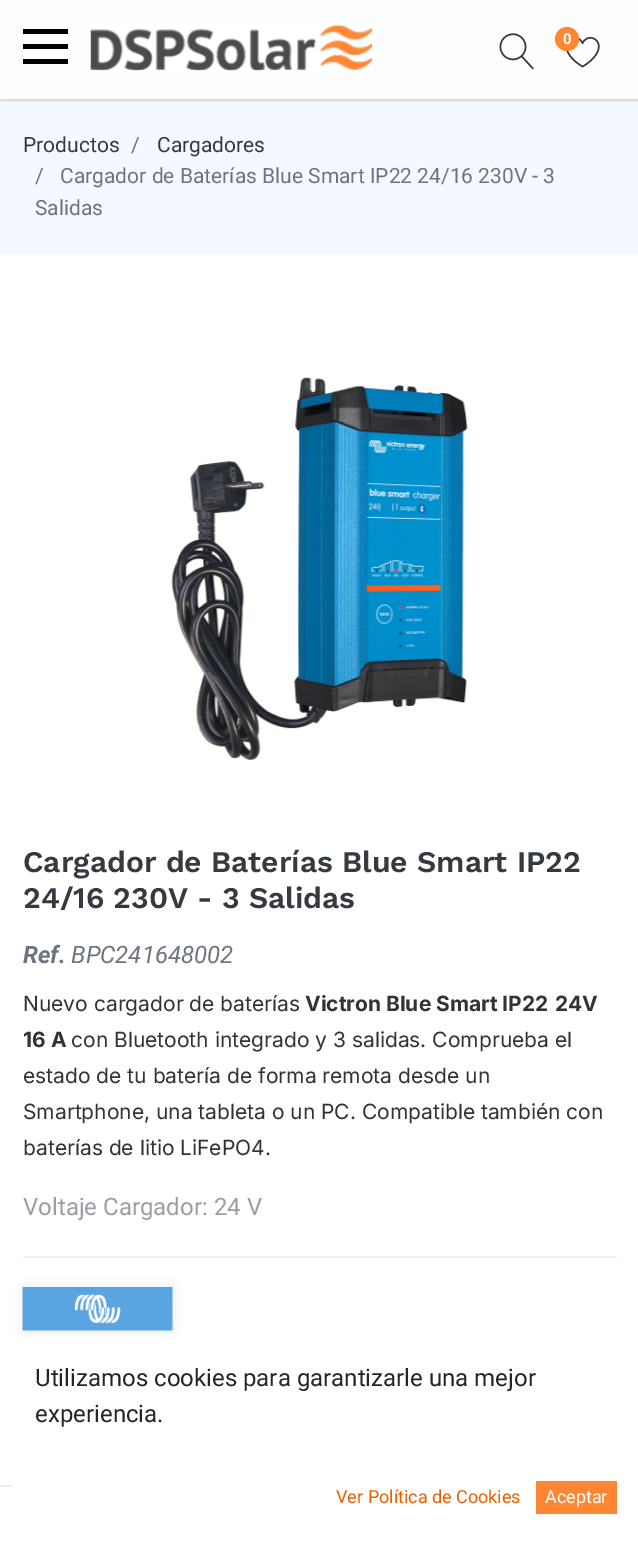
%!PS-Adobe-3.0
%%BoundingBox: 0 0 638 1549
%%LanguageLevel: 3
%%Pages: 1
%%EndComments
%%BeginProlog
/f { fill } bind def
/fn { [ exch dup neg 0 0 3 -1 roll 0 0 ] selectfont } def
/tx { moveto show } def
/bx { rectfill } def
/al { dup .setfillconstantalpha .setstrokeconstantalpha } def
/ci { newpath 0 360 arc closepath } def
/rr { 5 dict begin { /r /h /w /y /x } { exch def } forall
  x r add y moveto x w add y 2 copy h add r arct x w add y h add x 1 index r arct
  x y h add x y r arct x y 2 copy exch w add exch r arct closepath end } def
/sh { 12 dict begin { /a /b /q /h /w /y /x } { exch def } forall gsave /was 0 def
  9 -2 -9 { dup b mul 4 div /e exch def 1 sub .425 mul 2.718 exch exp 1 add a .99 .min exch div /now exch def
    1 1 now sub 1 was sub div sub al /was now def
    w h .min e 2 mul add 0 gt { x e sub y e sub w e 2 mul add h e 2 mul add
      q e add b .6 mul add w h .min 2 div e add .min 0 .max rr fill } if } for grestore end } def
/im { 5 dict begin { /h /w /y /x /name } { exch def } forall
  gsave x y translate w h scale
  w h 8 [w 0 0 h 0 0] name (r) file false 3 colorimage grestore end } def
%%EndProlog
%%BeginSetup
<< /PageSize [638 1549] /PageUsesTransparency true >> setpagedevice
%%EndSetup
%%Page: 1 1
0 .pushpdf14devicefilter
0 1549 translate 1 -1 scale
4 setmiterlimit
1 setgray
0 0 638 1549 bx
0.961 0.976 1 setrgbcolor
0 99 638 155 bx
0 0 0.024 setrgbcolor
0 2 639 99 0 1 0.14 sh
0.992 setgray
0 1 638 98 bx
0 setgray
23 59 45 5 bx
23 29 45 5 bx
23 44 45 5 bx
(image0.raw) 90 24 283 47 im
(image1.raw) 499 33 35 37 im
(image2.raw) 566 36 34 32 im
1 0.529 0.2 setrgbcolor
567 39 12 ci f
/Roboto-Bold 15 fn
1 setgray
(0) 563 44 tx
/Roboto-Regular 21 fn
0.204 0.227 0.251 setrgbcolor
(Productos) 23 152 tx
0.424 0.459 0.49 setrgbcolor
(/) 131 152 tx
0.204 0.227 0.251 setrgbcolor
(Cargadores) 157 152 tx
0.424 0.459 0.49 setrgbcolor
(/) 35 183 tx
(Cargador de Baterías Blue Smart IP22 24/16 230V - 3) 60 183 tx
(Salidas) 35 215 tx
(image3.raw) 171 377 297 384 im
/WorkSans-SemiBold 30 fn
0.204 0.227 0.251 setrgbcolor
(Cargador de Baterías Blue Smart IP22) 23 872 tx
(24/16 230V - 3 Salidas) 23 908 tx
/Roboto-BoldItalic 24 fn
0.424 0.459 0.49 setrgbcolor
(Ref.) 23 963 tx
/Roboto-Italic 24 fn
(BPC241648002) 71 963 tx
/Inter-Regular 21 fn
0.2 setgray
(Nuevo cargador de baterías) 23 1011 tx
/Inter-Bold 21 fn
(Victron Blue Smart IP22) 305 1011 tx
(24V) 555 1011 tx
(16 A) 23 1047 tx
/Inter-Regular 21 fn
(con Bluetooth integrado y 3 salidas. Comprueba el) 71 1047 tx
(estado de tu batería de forma remota desde un) 23 1083 tx
(Smartphone, una tableta o un PC. Compatible también con) 23 1119 tx
(baterías de litio LiFePO4.) 23 1155 tx
/Roboto-Regular 24 fn
0.596 0.62 0.643 setrgbcolor
(Voltaje Cargador: 24 V) 23 1215 tx
0.933 setgray
23 1256 594 2 bx
0.122 0.176 0.239 setrgbcolor
23 1287 150 44 0 5 0.12 sh
(image4.raw) 22 1287 151 44 im
0.933 setgray
0 1485 12 2 bx
1 setgray
35 1337 126 1 bx
0.129 0.145 0.161 setrgbcolor
(Utilizamos cookies para garantizarle una mejor) 35 1386 tx
(experiencia.) 35 1422 tx
/Roboto-Regular 18 fn
0.902 0.373 0 setrgbcolor
(Ver Política de Cookies) 336 1503 tx
1 0.529 0.2 setrgbcolor
536 1481 81 33 bx
1 setgray
(Aceptar) 545 1503 tx
.poppdf14devicefilter showpage
%%EOF
